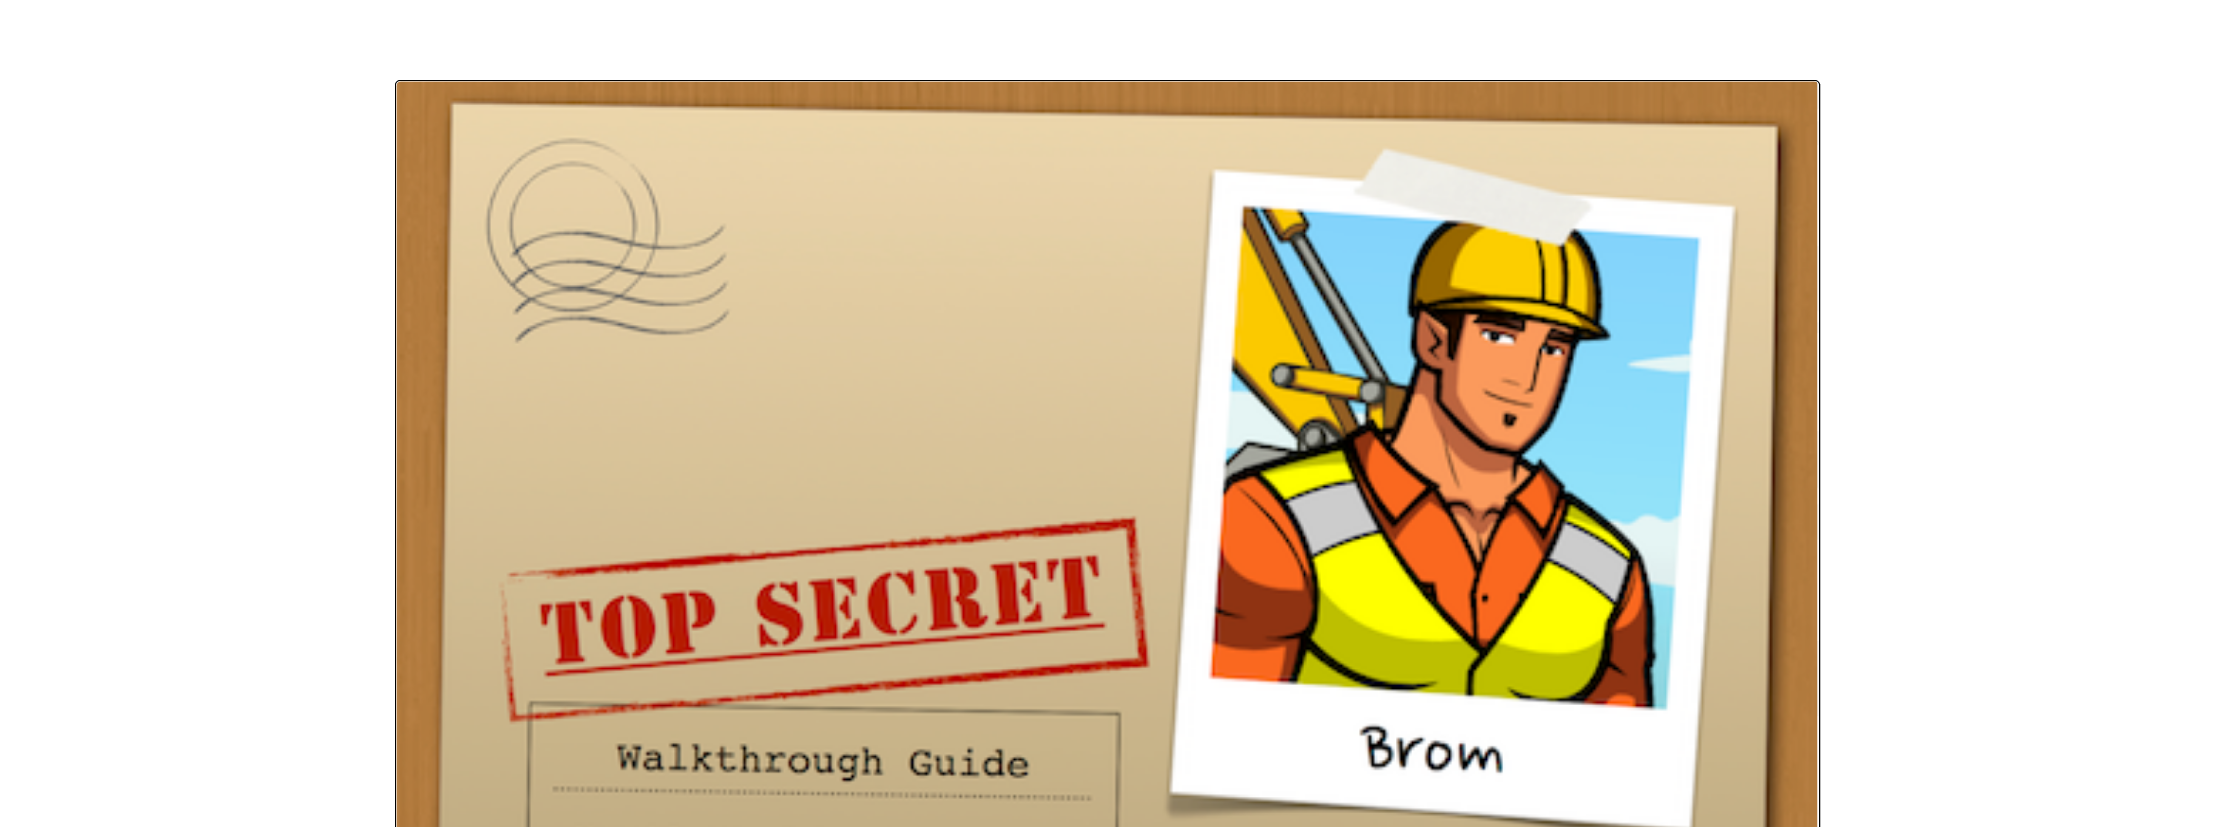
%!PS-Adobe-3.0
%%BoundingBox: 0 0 2213 827
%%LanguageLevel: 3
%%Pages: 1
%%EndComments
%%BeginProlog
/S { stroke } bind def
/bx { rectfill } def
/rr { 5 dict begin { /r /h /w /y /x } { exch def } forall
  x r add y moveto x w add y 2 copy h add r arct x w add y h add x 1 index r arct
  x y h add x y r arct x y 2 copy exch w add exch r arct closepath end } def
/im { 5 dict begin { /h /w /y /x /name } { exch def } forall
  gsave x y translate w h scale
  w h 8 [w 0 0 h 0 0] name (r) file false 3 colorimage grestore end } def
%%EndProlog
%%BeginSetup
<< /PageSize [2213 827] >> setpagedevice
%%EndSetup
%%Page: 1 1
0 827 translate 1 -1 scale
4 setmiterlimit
1 setgray
0 0 2213 827 bx
0 setgray
395.5 80.5 1424 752 4.5 rr S
(image0.raw) 399 81 1420 746 im
(image1.raw) 396 81 1422 746 im
showpage
%%EOF
